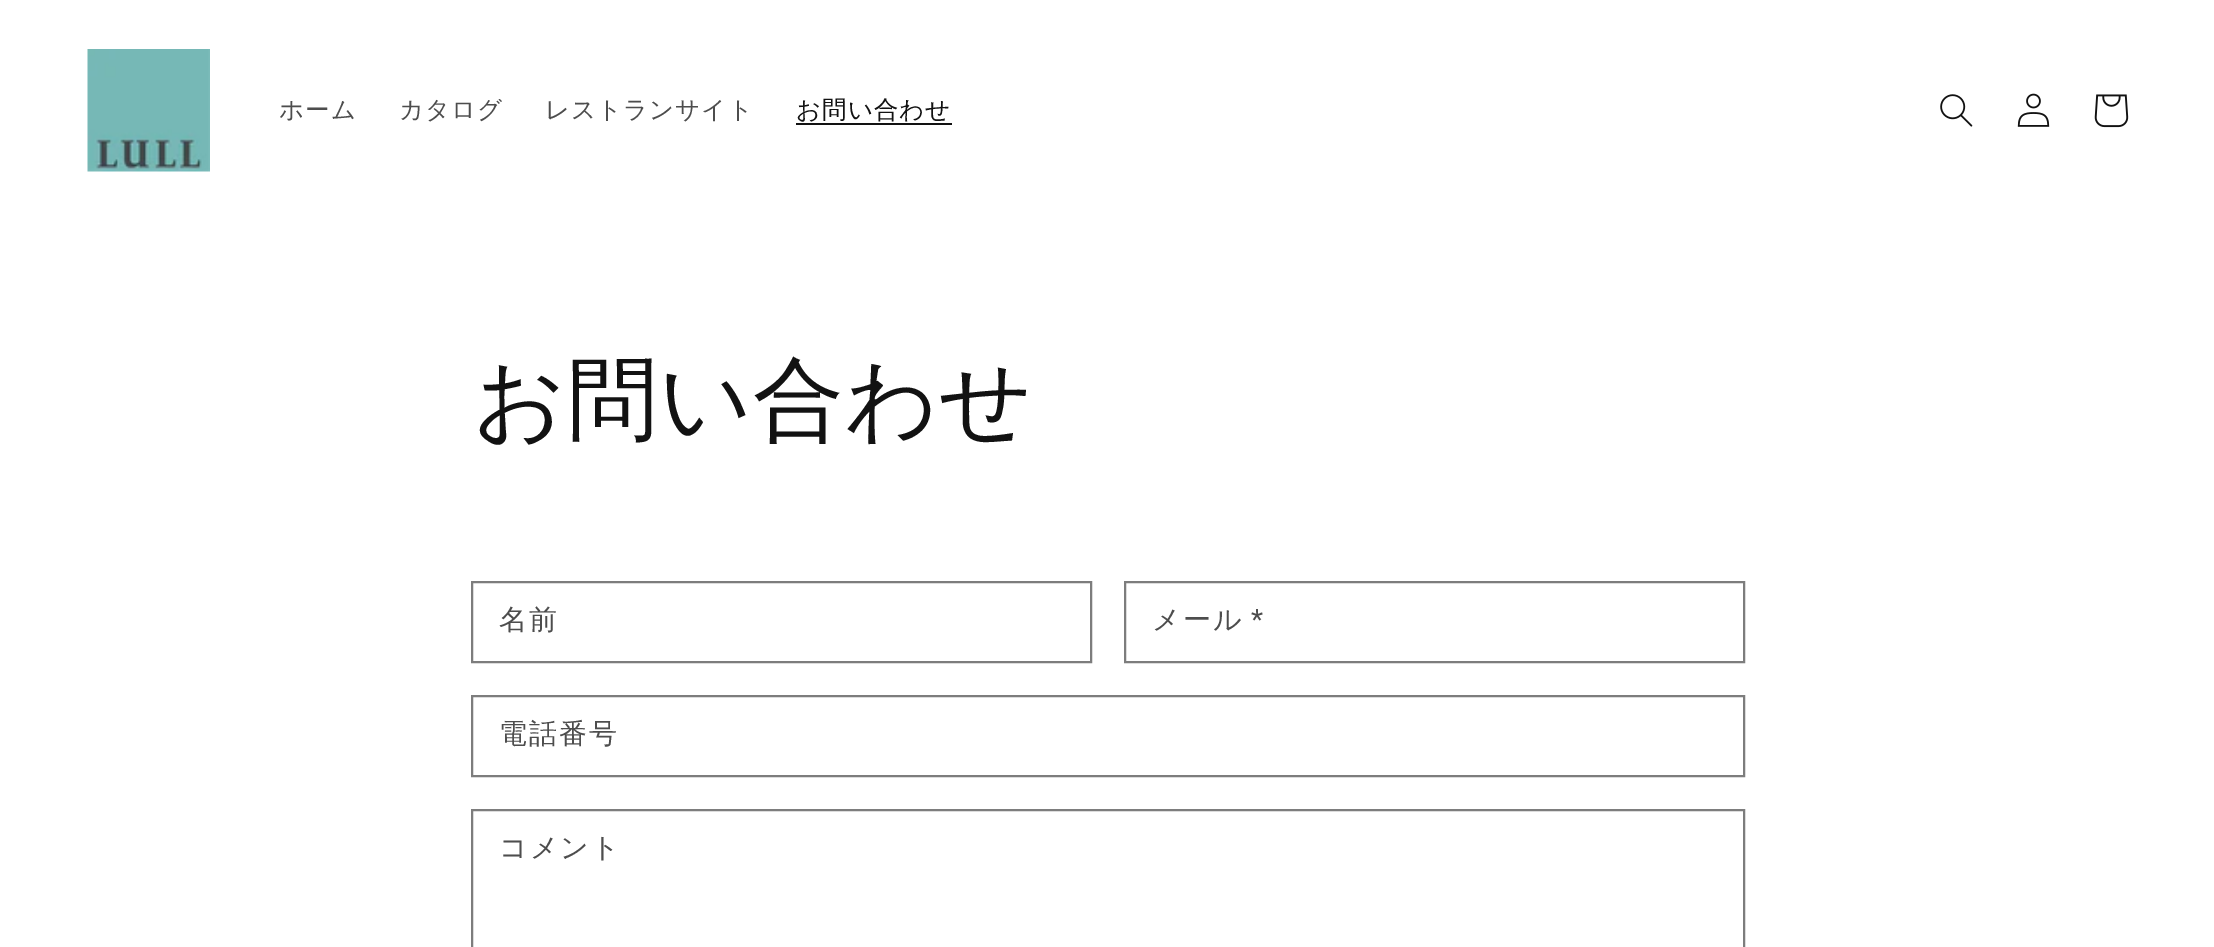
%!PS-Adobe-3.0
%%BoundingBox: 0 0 2214 947
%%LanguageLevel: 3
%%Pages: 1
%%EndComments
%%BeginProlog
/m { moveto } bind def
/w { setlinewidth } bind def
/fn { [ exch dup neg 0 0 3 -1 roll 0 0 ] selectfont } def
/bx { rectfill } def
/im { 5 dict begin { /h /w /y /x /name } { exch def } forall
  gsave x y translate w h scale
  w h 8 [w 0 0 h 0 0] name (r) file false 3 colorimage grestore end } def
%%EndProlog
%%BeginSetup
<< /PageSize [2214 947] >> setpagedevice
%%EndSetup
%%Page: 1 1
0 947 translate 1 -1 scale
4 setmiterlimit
1 setgray
0 0 2214 947 bx
(image0.raw) 87 49 123 123 im
/WenQuanYiZenHei-Medium 24.5 fn
0.302 setgray
279 118 m 1 0 (ホーム) ashow
399 118 m 1 0 (カタログ) ashow
545 118 m 1 0 (レストランサイト) ashow
0.071 setgray
796 118 m 1 0 (お問い合わせ) ashow
796 123 156 2 bx
(image1.raw) 1940 94 33 33 im
(image2.raw) 2017 93 33 34 im
(image3.raw) 2094 94 35 34 im
/WenQuanYiZenHei-Medium 91 fn
473 431 m 1 0 (お問い合わせ) ashow
0.49 setgray
2 w
472 582 619 80 rectstroke
/WenQuanYiZenHei-Medium 28 fn
0.302 setgray
499 629 m 2 0 (名前) ashow
0.49 setgray
1125 582 619 80 rectstroke
0.302 setgray
1152 629 m 2 0 (メール) ashow
/Roboto-Regular 28 fn
1251 629 m 2 0 (*) ashow
0.49 setgray
472 696 1272 80 rectstroke
/WenQuanYiZenHei-Medium 28 fn
0.302 setgray
499 743 m 2 0 (電話番号) ashow
0.49 setgray
472 810 1272 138 rectstroke
0.302 setgray
499 857 m 2 0 (コメント) ashow
showpage
%%EOF
